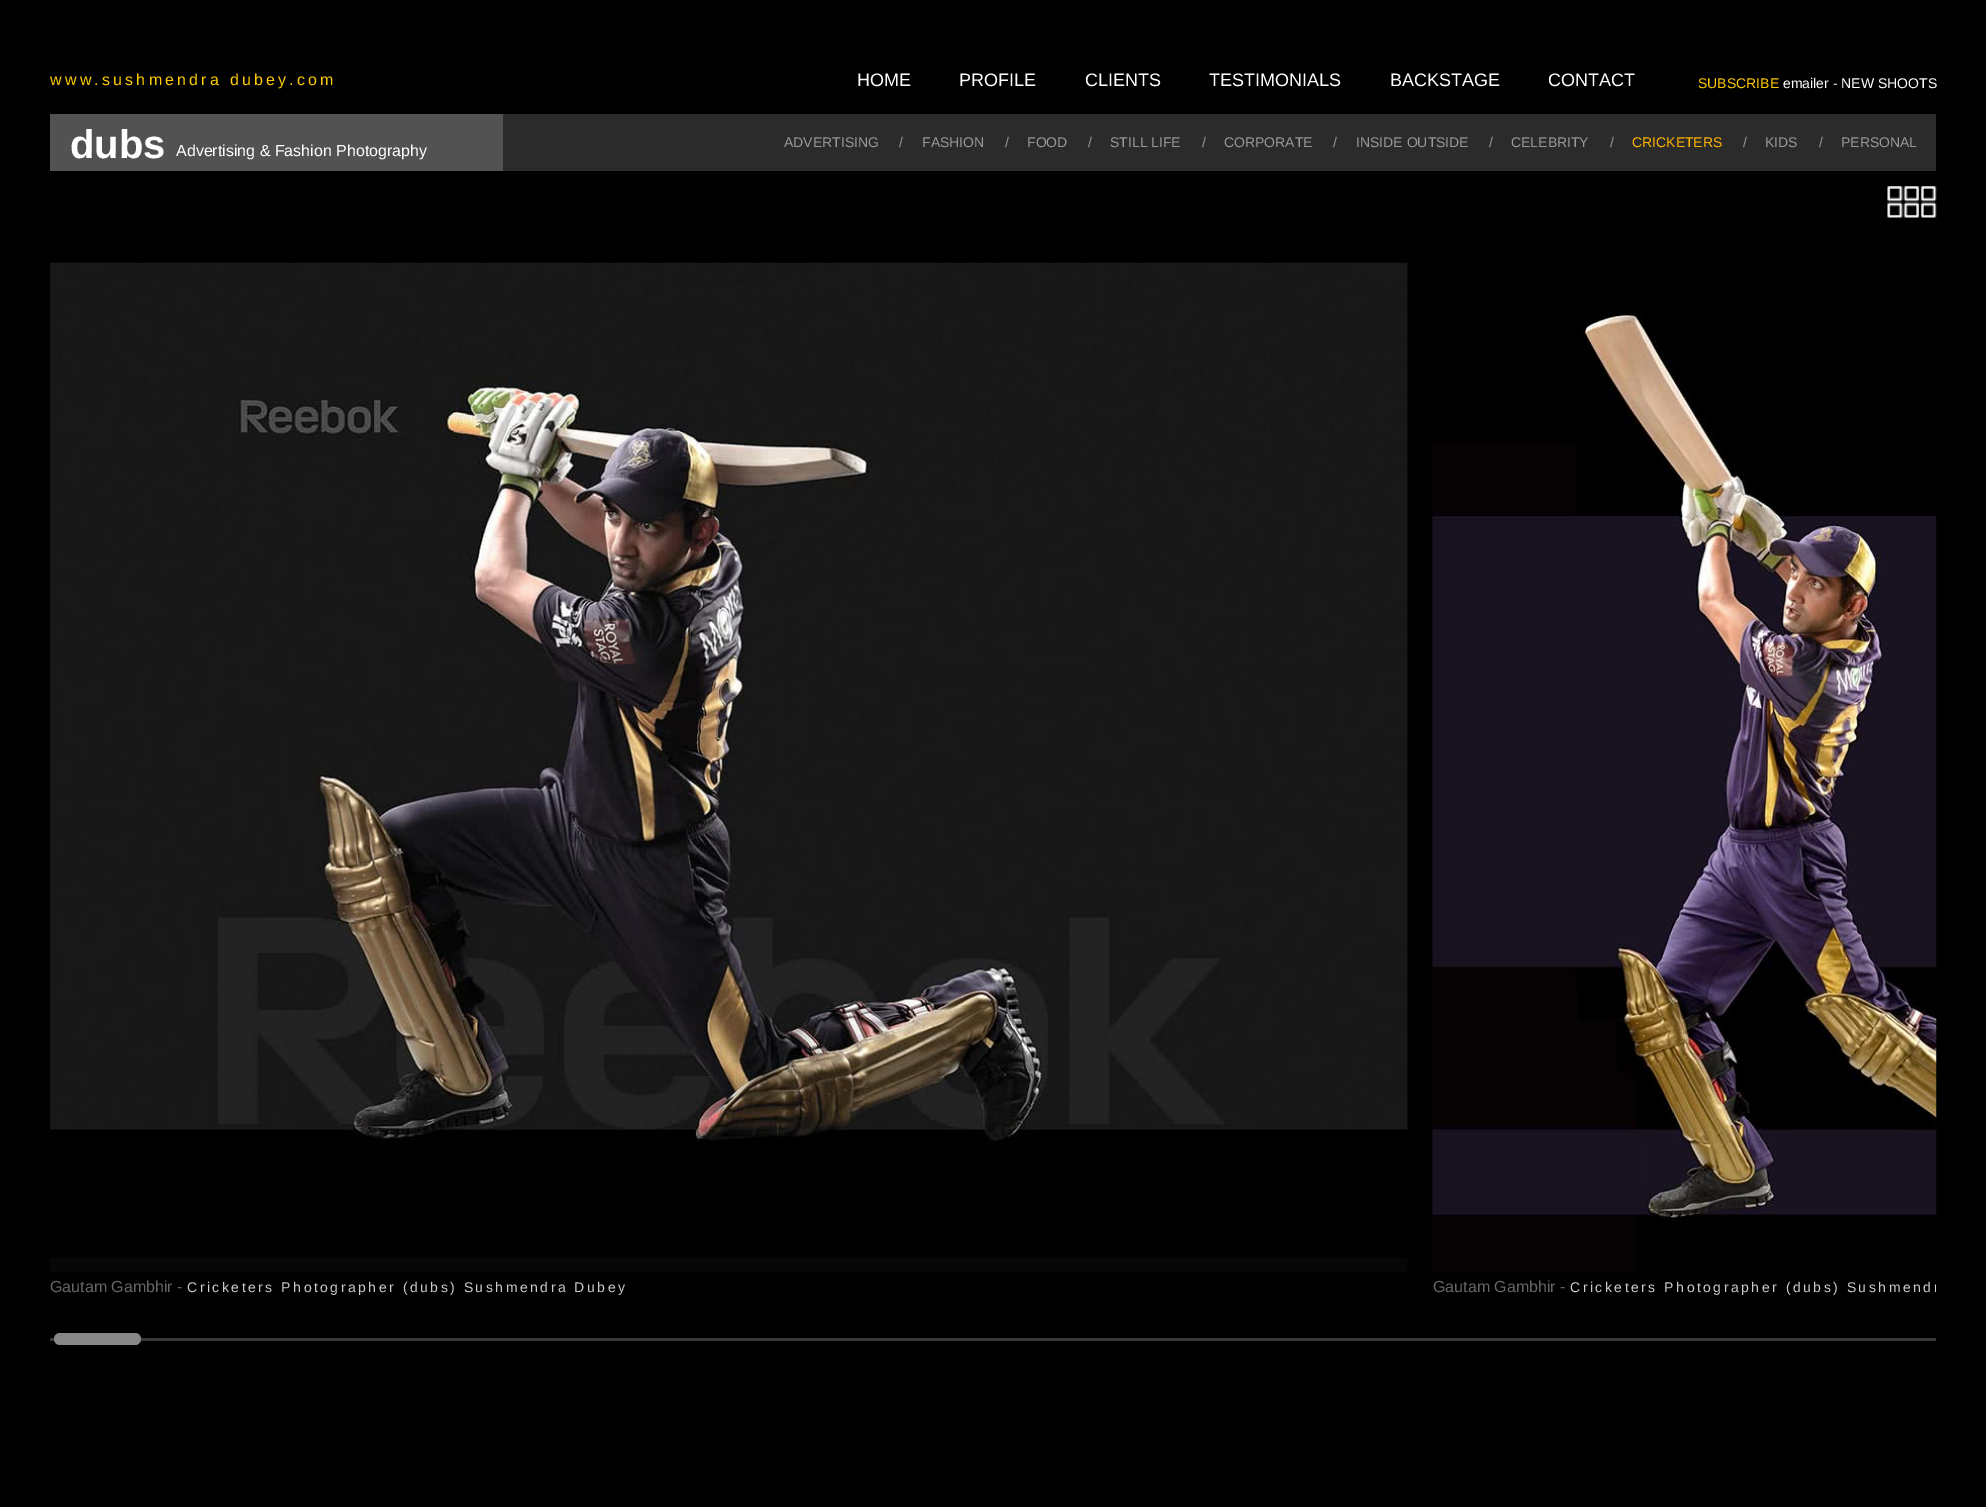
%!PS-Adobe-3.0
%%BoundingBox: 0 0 1986 1507
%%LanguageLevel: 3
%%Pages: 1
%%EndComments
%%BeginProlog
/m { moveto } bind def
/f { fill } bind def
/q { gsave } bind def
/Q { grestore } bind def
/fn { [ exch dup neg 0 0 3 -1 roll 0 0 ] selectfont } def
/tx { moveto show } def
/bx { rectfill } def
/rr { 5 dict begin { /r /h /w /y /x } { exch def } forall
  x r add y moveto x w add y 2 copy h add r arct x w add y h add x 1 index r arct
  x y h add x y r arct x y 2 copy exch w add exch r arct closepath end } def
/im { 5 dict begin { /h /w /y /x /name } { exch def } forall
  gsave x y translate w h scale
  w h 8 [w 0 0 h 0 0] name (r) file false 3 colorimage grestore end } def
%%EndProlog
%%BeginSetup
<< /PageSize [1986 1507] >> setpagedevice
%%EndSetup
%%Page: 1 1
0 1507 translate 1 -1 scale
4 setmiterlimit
0 setgray
0 0 1986 1507 bx
/LiberationSans-Regular 16 fn
0.988 0.796 0.016 setrgbcolor
50 85 m 3.2 0 (www.sushmendra dubey.com) ashow
/LiberationSans-Regular 18 fn
1 setgray
(HOME) 857 86 tx
(PROFILE) 959 86 tx
(CLIENTS) 1085 86 tx
(TESTIMONIALS) 1209 86 tx
(BACKSTAGE) 1390 86 tx
(CONTACT) 1548 86 tx
/LiberationSans-Regular 14 fn
0.988 0.796 0.016 setrgbcolor
(SUBSCRIBE) 1698 88 tx
1 setgray
(emailer - NEW SHOOTS) 1783 88 tx
0.169 setgray
503 114 1433 57 bx
0.322 setgray
50 114 453 57 bx
/LiberationSans-Bold 40 fn
1 setgray
(dubs) 70 158 tx
/LiberationSans-Regular 16 fn
(Advertising & Fashion Photography) 176 156 tx
/LiberationSans-Regular 14 fn
0.6 setgray
(ADVERTISING) 784 147 tx
(/) 899 147 tx
(FASHION) 922 147 tx
(/) 1005 147 tx
(FOOD) 1027 147 tx
(/) 1088 147 tx
(STILL LIFE) 1110 147 tx
(/) 1202 147 tx
(CORPORATE) 1224 147 tx
(/) 1333 147 tx
(INSIDE OUTSIDE) 1356 147 tx
(/) 1489 147 tx
(CELEBRITY) 1511 147 tx
(/) 1610 147 tx
0.996 0.702 0 setrgbcolor
(CRICKETERS) 1632 147 tx
0.6 setgray
(/) 1743 147 tx
(KIDS) 1765 147 tx
(/) 1819 147 tx
(PERSONAL) 1841 147 tx
(image0.raw) 1887 186 50 32 im
(image1.raw) 50 262 1358 1010 im
/LiberationSans-Regular 16 fn
0.4 setgray
(Gautam Gambhir -) 50 1292 tx
/LiberationSans-Regular 14 fn
0.8 setgray
187 1292 m 2.5 0 (Cricketers Photographer \(dubs\) Sushmendra Dubey) ashow
(image2.raw) 1432 311 505 962 im
/LiberationSans-Regular 16 fn
0.4 setgray
(Gautam Gambhir -) 1433 1292 tx
q
50 263 1886 1032 rectclip
/LiberationSans-Regular 14 fn
0.8 setgray
1570 1292 m 2.5 0 (Cricketers Photographer \(dubs\) Sushmendr) ashow
Q
0.224 setgray
50 1338 1886 3 1.5 rr f
0.529 setgray
54 1333 87 12 6 rr f
showpage
%%EOF
